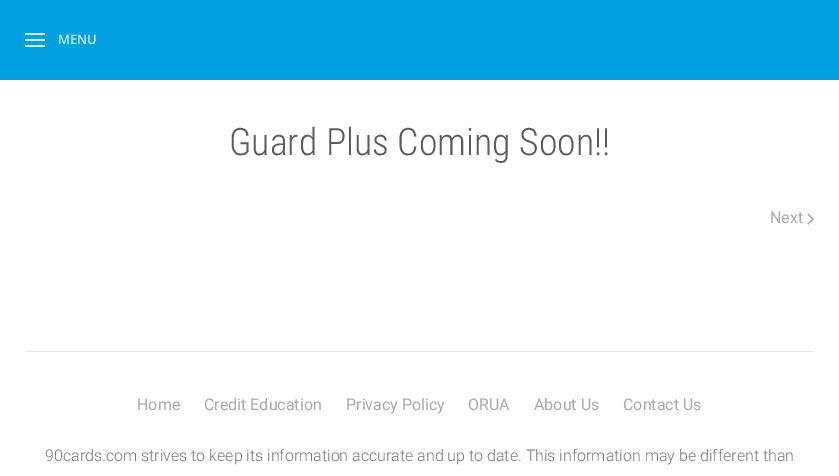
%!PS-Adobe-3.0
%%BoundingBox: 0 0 839 476
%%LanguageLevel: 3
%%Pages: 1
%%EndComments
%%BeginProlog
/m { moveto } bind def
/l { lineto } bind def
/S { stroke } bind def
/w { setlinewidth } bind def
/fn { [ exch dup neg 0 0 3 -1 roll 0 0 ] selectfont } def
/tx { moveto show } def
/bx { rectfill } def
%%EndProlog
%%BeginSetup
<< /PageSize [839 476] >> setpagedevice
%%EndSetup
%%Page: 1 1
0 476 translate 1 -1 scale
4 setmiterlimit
1 setgray
0 0 839 476 bx
0 0.627 0.871 setrgbcolor
0 0 839 80 bx
0.8 0.925 0.973 setrgbcolor
25 33 20 2 bx
25 39 20 2 bx
25 45 20 2 bx
/OpenSans-SemiBold 13 fn
(MENU) 58 44 tx
/RobotoCondensed-Light 37.75 fn
0.357 setgray
(Guard Plus Coming Soon!!) 229 155 tx
/Roboto-Regular 16 fn
0.667 setgray
(Next) 770 223 tx
1.2 w
808 214 m 813 219 l 808 224 l S
0.91 setgray
25 351 789 1 bx
0.667 setgray
(Home) 137 410 tx
(Credit Education) 204 410 tx
(Privacy Policy) 346 410 tx
(ORUA) 468 410 tx
(About Us) 534 410 tx
(Contact Us) 623 410 tx
/Roboto-Light 16 fn
0.463 0.467 0.475 setrgbcolor
(90cards.com strives to keep its information accurate and up to date. This information may be different than) 45 461 tx
showpage
%%EOF
